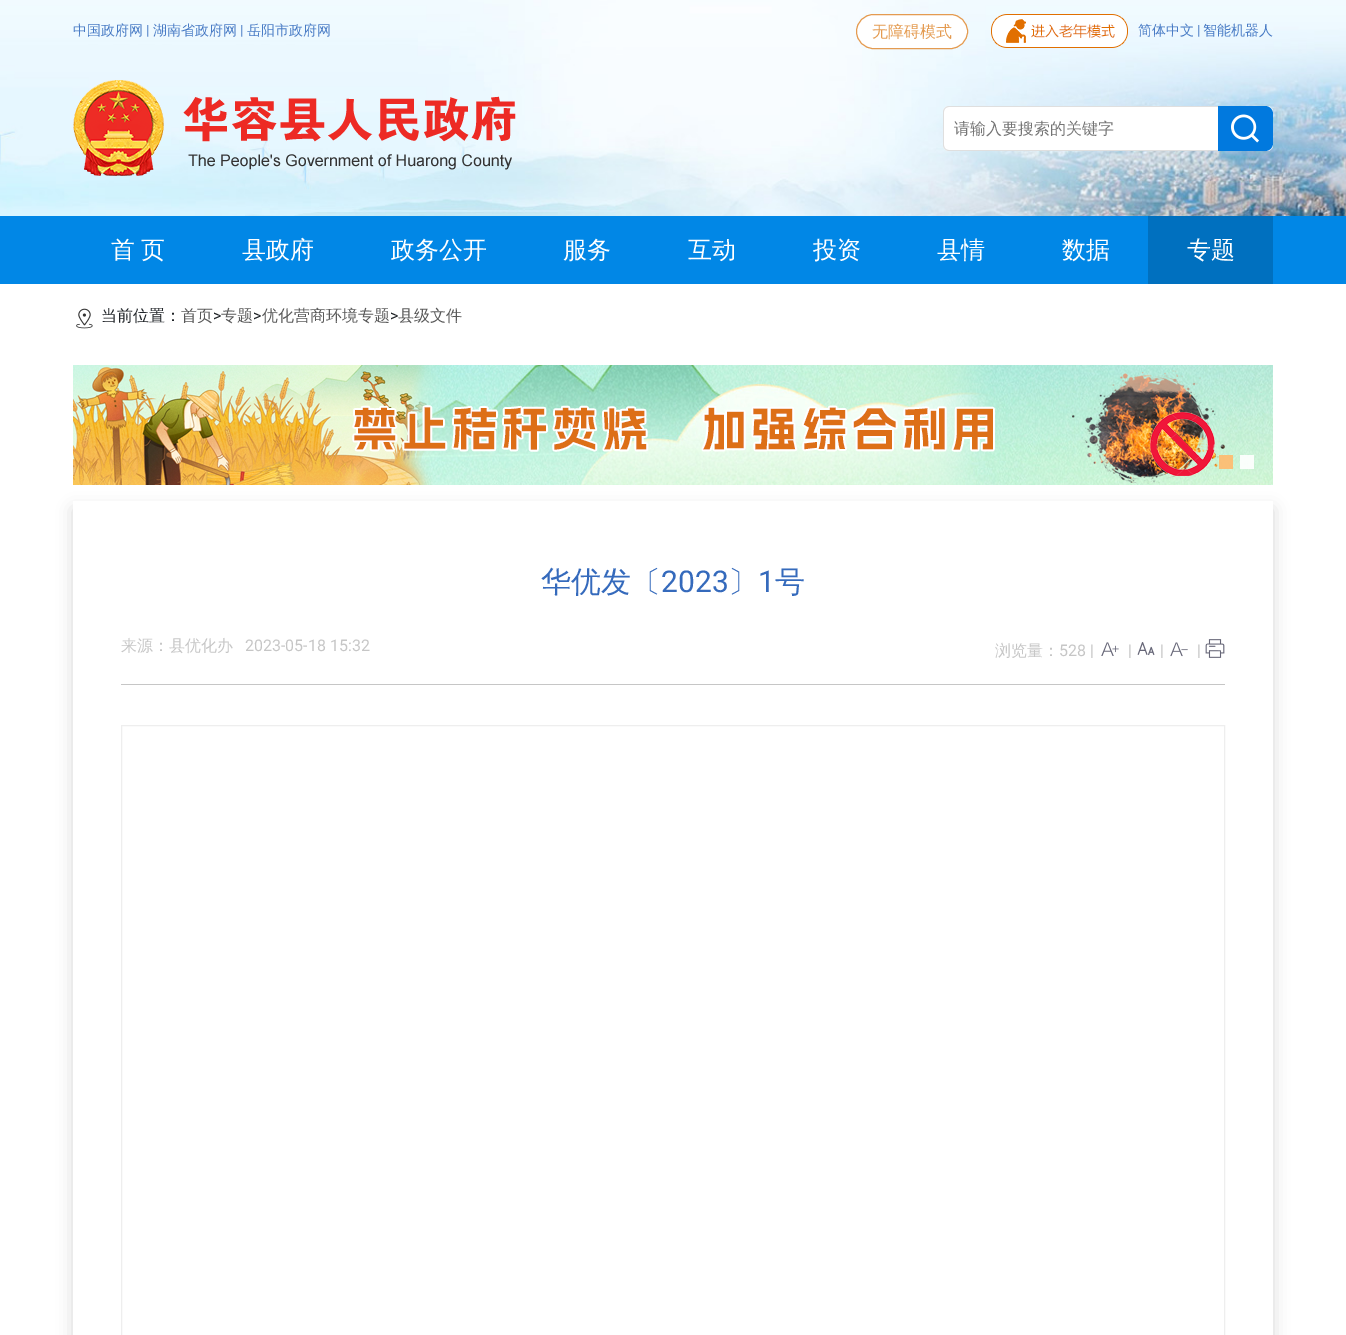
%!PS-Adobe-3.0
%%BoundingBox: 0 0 1346 1335
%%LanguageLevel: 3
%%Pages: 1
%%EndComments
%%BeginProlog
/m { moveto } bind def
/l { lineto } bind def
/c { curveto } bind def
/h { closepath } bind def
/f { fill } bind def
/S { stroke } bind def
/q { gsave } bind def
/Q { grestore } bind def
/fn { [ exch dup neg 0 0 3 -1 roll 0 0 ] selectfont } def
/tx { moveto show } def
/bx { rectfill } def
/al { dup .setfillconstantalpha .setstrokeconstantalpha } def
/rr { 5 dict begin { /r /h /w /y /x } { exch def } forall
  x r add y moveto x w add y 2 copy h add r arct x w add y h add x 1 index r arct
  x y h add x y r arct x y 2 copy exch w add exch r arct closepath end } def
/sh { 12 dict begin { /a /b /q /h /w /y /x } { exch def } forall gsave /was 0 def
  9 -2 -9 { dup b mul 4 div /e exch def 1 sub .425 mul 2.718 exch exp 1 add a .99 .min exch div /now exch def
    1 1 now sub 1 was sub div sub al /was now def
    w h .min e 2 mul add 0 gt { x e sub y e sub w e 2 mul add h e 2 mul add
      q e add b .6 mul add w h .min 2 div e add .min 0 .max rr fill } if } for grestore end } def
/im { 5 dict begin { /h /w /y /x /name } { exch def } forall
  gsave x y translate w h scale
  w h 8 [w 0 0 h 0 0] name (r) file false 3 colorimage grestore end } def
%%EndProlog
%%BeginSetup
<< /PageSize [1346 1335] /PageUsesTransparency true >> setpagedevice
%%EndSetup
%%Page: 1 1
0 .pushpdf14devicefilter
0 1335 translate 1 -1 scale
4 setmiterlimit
1 setgray
0 0 1346 1335 bx
(image0.raw) 0 0 1346 216 im
/WenQuanYiZenHei-Medium 14 fn
0.282 0.482 0.773 setrgbcolor
(中国政府网) 73 35 tx
/Roboto-Regular 14 fn
(|) 146 35 tx
/WenQuanYiZenHei-Medium 14 fn
(湖南省政府网) 153 35 tx
/Roboto-Regular 14 fn
(|) 240 35 tx
/WenQuanYiZenHei-Medium 14 fn
(岳阳市政府网) 247 35 tx
(image1.raw) 991 14 137 34 im
(简体中文) 1138 35 tx
/Roboto-Regular 14 fn
(|) 1197 35 tx
/WenQuanYiZenHei-Medium 14 fn
(智能机器人) 1203 35 tx
1 setgray
856.5 14.5 111 34 17 rr q f Q
0.894 0.608 0.318 setrgbcolor
S
/WenQuanYiZenHei-Medium 16 fn
(无障碍模式) 872 37 tx
(image2.raw) 73 80 443 96 im
1 setgray
943 106 330 45 6 rr f
0.875 setgray
949 106 m 1218 106 l 1218 151 l 949 151 l 946 151 943 148 943 145 c 943 112 l 943 109 946 106 949 106 c h 949 107 m 1218 107 l 1218 150 l 949 150 l 946 150 944 148 944 145 c 944 112 l 944 109 946 107 949 107 c h eofill
0.459 setgray
(请输入要搜索的关键字) 954 134 tx
0.004 0.475 0.871 setrgbcolor
1218 106 m 1265 106 l 1269.5 106 1273 109.5 1273 114 c 1273 143 l 1273 147.5 1269.5 151 1265 151 c 1218 151 l h f
(image3.raw) 1231 114 28 29 im
0.004 0.529 0.902 setrgbcolor
0 216 1346 68 bx
/WenQuanYiZenHei-Medium 24 fn
1 setgray
111 258 m -1 0 32 (首 页) widthshow
(县政府) 242 258 tx
(政务公开) 391 258 tx
(服务) 563 258 tx
(互动) 688 258 tx
(投资) 813 258 tx
(县情) 937 258 tx
(数据) 1062 258 tx
0 0.439 0.749 setrgbcolor
1148 216 125 68 bx
1 setgray
(专题) 1187 258 tx
(image4.raw) 76 308 17 21 im
/WenQuanYiZenHei-Medium 16 fn
0.129 0.145 0.161 setrgbcolor
(当前位置：) 101 321 tx
0.349 setgray
(首页) 181 321 tx
/Roboto-Regular 16 fn
0.129 0.145 0.161 setrgbcolor
(>) 213 321 tx
/WenQuanYiZenHei-Medium 16 fn
0.349 setgray
(专题) 221 321 tx
/Roboto-Regular 16 fn
0.129 0.145 0.161 setrgbcolor
(>) 253 321 tx
/WenQuanYiZenHei-Medium 16 fn
0.349 setgray
(优化营商环境专题) 262 321 tx
/Roboto-Regular 16 fn
0.129 0.145 0.161 setrgbcolor
(>) 390 321 tx
/WenQuanYiZenHei-Medium 16 fn
0.349 setgray
(县级文件) 398 321 tx
q
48 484 m 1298 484 l 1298 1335 l 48 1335 l h 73 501 m 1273 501 l 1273 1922 l 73 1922 l h eoclip newpath
0 setgray
73 509 1200 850 0 8 0.15 sh
Q
(image5.raw) 73 365 1200 120 im
0.9 al
1 0.729 0.427 setrgbcolor
1219 455 14 14 bx
1 setgray
1240 455 14 14 bx
/WenQuanYiZenHei-Medium 30 fn
1 al
0.208 0.416 0.737 setrgbcolor
(华优发〔) 541 592 tx
/Roboto-Regular 30 fn
(2023) 661 592 tx
/WenQuanYiZenHei-Medium 30 fn
(〕) 728 592 tx
/Roboto-Regular 30 fn
(1) 758 592 tx
/WenQuanYiZenHei-Medium 30 fn
(号) 775 592 tx
0.776 setgray
121 684 1104 1 bx
/WenQuanYiZenHei-Medium 16 fn
(来源：县优化办) 121 651 tx
/Roboto-Regular 16 fn
(2023-05-18 15:32) 245 651 tx
/WenQuanYiZenHei-Medium 16 fn
(浏览量：) 995 656 tx
/Roboto-Regular 16 fn
(528 |) 1059 656 tx
(image6.raw) 1101 642 18 14 im
(|) 1128 656 tx
(image7.raw) 1137 642 18 14 im
(|) 1160 656 tx
(image8.raw) 1170 642 18 15 im
(|) 1197 656 tx
(image9.raw) 1205 639 20 19 im
0.933 setgray
121.5 725.5 1103 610 rectstroke
.poppdf14devicefilter showpage
%%EOF
